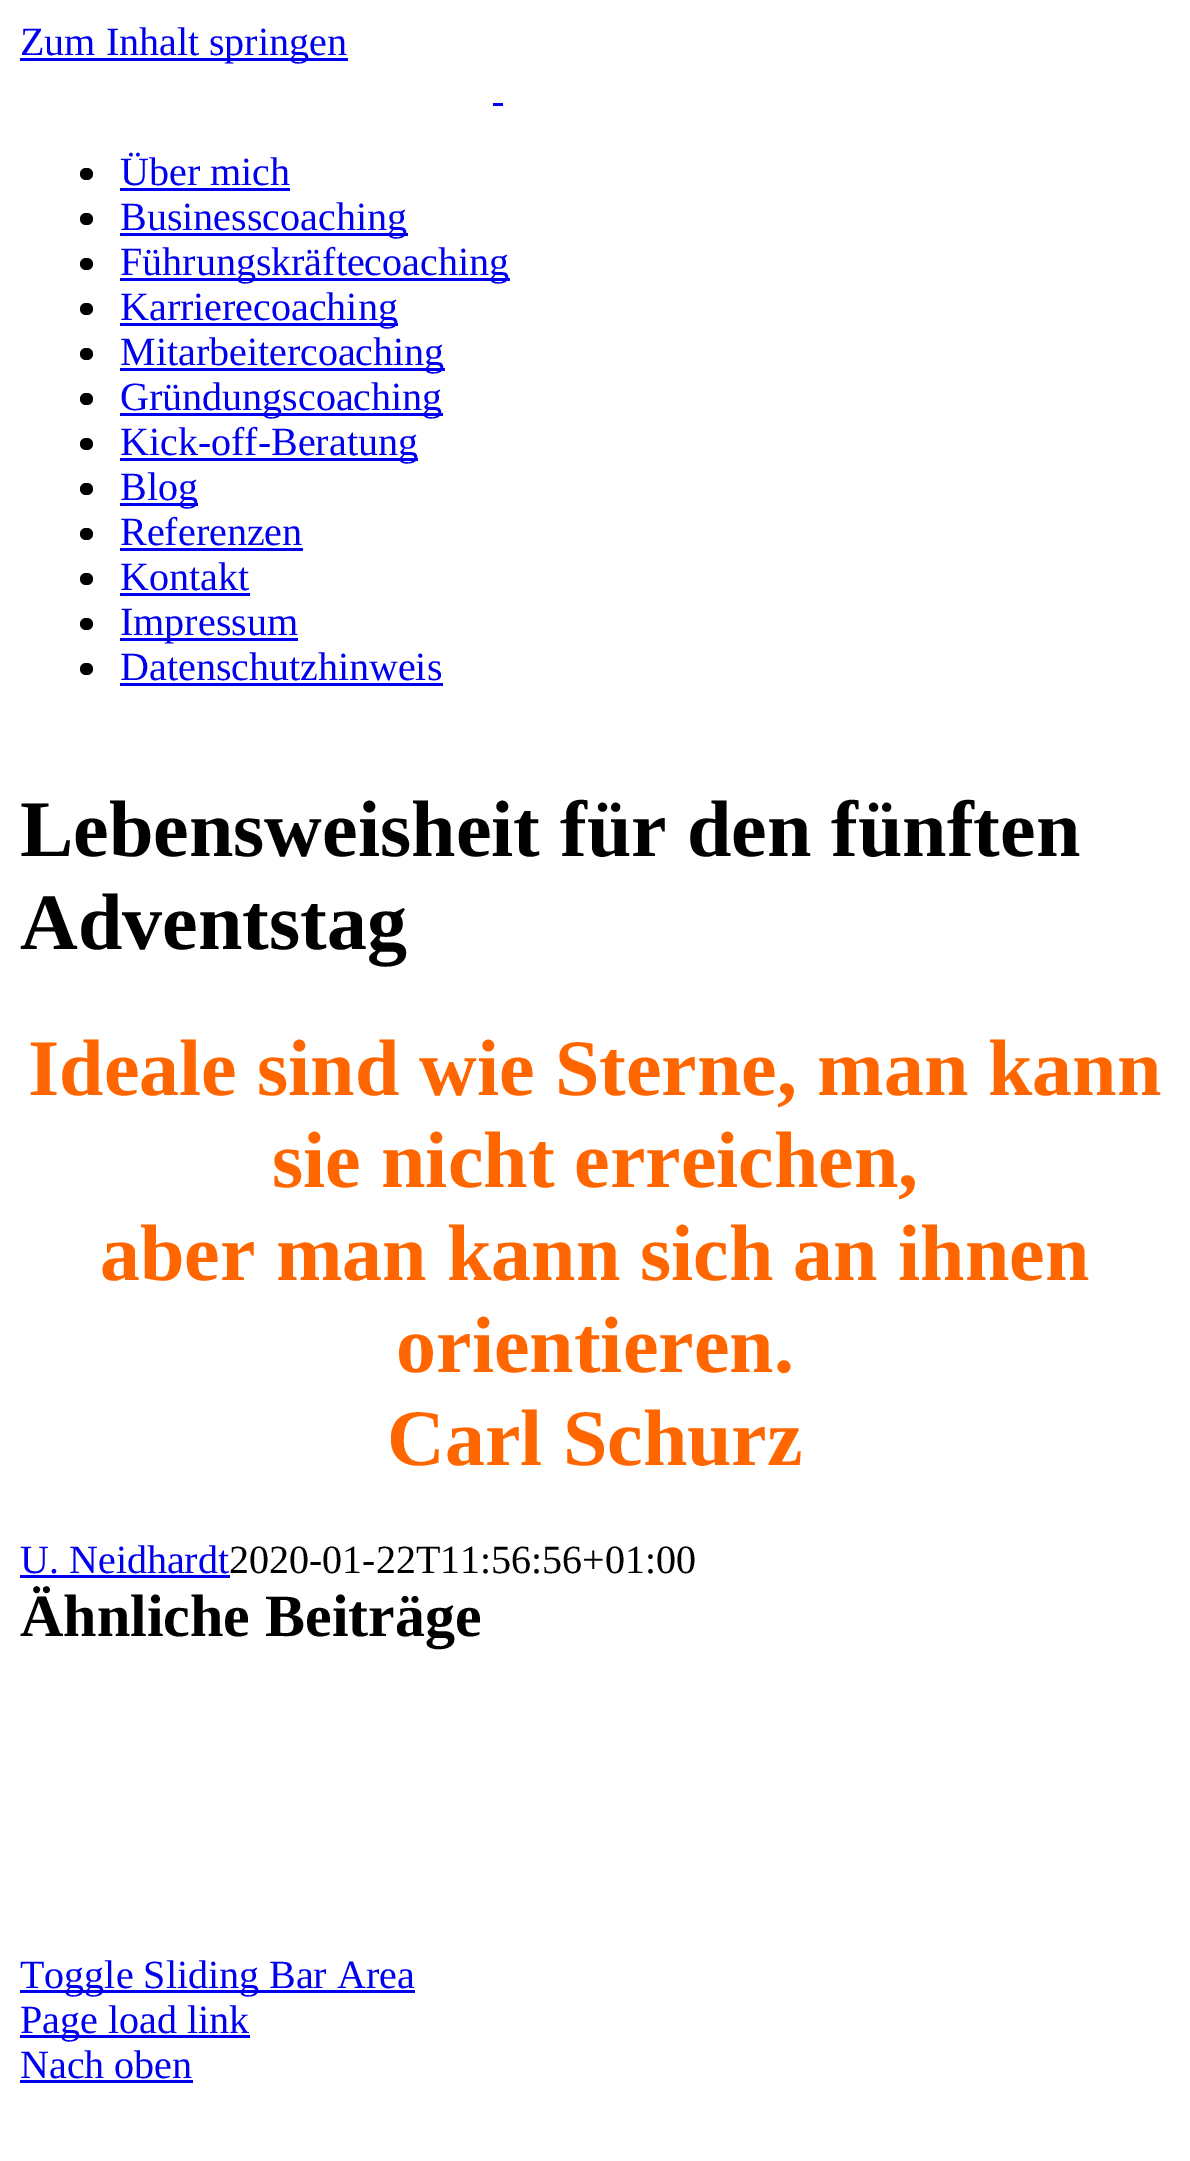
%!PS-Adobe-3.0
%%BoundingBox: 0 0 1190 2161
%%LanguageLevel: 3
%%Pages: 1
%%EndComments
%%BeginProlog
/f { fill } bind def
/fn { [ exch dup neg 0 0 3 -1 roll 0 0 ] selectfont } def
/tx { moveto show } def
/bx { rectfill } def
/rr { 5 dict begin { /r /h /w /y /x } { exch def } forall
  x r add y moveto x w add y 2 copy h add r arct x w add y h add x 1 index r arct
  x y h add x y r arct x y 2 copy exch w add exch r arct closepath end } def
%%EndProlog
%%BeginSetup
<< /PageSize [1190 2161] >> setpagedevice
%%EndSetup
%%Page: 1 1
0 2161 translate 1 -1 scale
4 setmiterlimit
1 setgray
0 0 1190 2161 bx
0 0 0.933 setrgbcolor
20 58 328 3 bx
/LiberationSerif-Regular 40 fn
(Zum Inhalt springen) 20 55 tx
493 103 10 3 bx
0 setgray
80 168 13 12 6 rr f
0 0 0.933 setrgbcolor
(Über mich) 120 185 tx
120 188 170 3 bx
0 setgray
80 213 13 12 6 rr f
0 0 0.933 setrgbcolor
120 233 288 3 bx
(Businesscoaching) 120 230 tx
0 setgray
80 258 13 12 6 rr f
0 0 0.933 setrgbcolor
120 278 390 3 bx
(Führungskräftecoaching) 120 275 tx
0 setgray
80 303 13 12 6 rr f
0 0 0.933 setrgbcolor
120 323 278 3 bx
(Karrierecoaching) 120 320 tx
0 setgray
80 348 13 12 6 rr f
0 0 0.933 setrgbcolor
120 368 325 3 bx
(Mitarbeitercoaching) 120 365 tx
0 setgray
80 393 13 12 6 rr f
0 0 0.933 setrgbcolor
120 413 323 3 bx
(Gründungscoaching) 120 410 tx
0 setgray
80 438 13 12 6 rr f
0 0 0.933 setrgbcolor
120 458 298 3 bx
(Kick-off-Beratung) 120 455 tx
0 setgray
80 483 13 12 6 rr f
0 0 0.933 setrgbcolor
120 503 78 3 bx
(Blog) 120 500 tx
0 setgray
80 528 13 12 6 rr f
0 0 0.933 setrgbcolor
(Referenzen) 120 545 tx
120 548 183 3 bx
0 setgray
80 573 13 12 6 rr f
0 0 0.933 setrgbcolor
(Kontakt) 120 590 tx
120 593 130 3 bx
0 setgray
80 618 13 12 6 rr f
0 0 0.933 setrgbcolor
120 638 178 3 bx
(Impressum) 120 635 tx
0 setgray
80 663 13 12 6 rr f
0 0 0.933 setrgbcolor
(Datenschutzhinweis) 120 680 tx
120 683 323 3 bx
/LiberationSerif-Bold 80 fn
0 setgray
(Lebensweisheit für den fünften) 20 856 tx
(Adventstag) 20 949 tx
1 0.4 0 setrgbcolor
(Ideale sind wie Sterne, man kann) 28 1095 tx
(sie nicht erreichen,) 272 1187 tx
(aber man kann sich an ihnen) 100 1280 tx
(orientieren.) 396 1372 tx
(Carl Schurz) 387 1465 tx
/LiberationSerif-Regular 40 fn
0 0 0.933 setrgbcolor
(U. Neidhardt) 20 1573 tx
20 1575 210 3 bx
0 setgray
(2020-01-22T11:56:56+01:00) 229 1573 tx
/LiberationSerif-Bold 60 fn
(Ähnliche Beiträge) 20 1636 tx
0 0 0.933 setrgbcolor
20 1990 395 3 bx
/LiberationSerif-Regular 40 fn
(Toggle Sliding Bar Area) 20 1988 tx
20 2035 230 3 bx
(Page load link) 20 2033 tx
(Nach oben) 20 2078 tx
20 2080 173 3 bx
showpage
%%EOF
